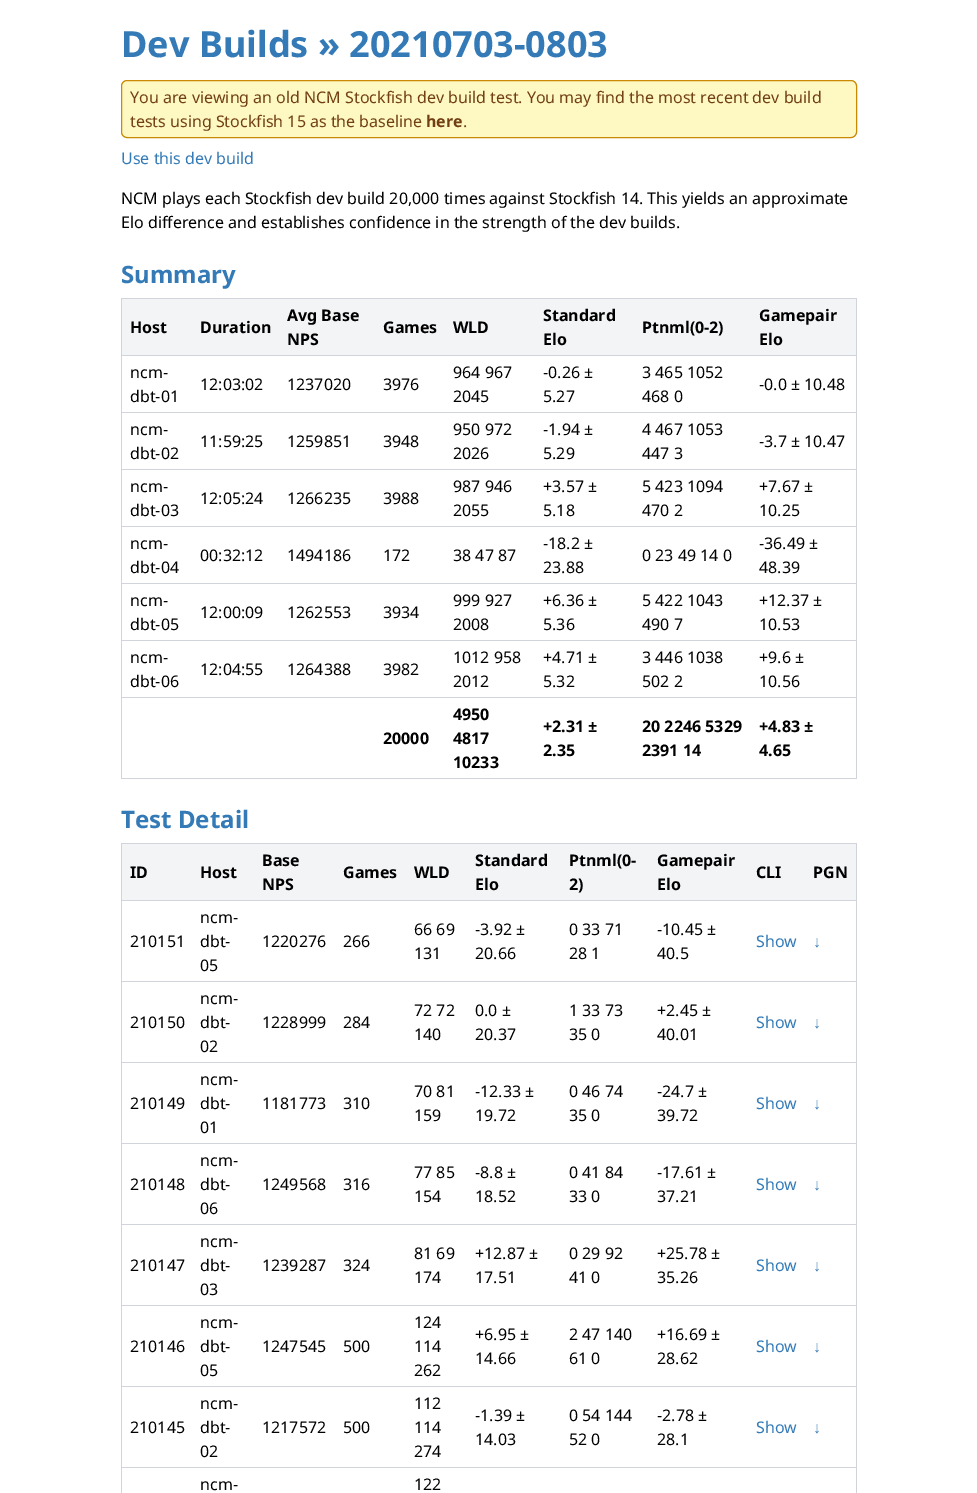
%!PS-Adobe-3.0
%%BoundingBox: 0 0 977 1493
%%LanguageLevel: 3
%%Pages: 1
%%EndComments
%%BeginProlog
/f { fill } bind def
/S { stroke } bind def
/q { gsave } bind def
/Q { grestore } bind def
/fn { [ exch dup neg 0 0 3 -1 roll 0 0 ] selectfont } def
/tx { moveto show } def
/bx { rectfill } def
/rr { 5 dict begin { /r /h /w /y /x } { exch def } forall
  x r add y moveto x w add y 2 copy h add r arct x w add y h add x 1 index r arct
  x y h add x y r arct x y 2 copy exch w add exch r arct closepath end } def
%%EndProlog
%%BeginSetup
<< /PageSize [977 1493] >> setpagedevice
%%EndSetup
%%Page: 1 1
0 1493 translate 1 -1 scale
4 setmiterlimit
1 setgray
0 0 977 1493 bx
/NotoSans-Bold 36 fn
0.2 0.478 0.718 setrgbcolor
(Dev Builds » 20210703-0803) 121 57 tx
0.996 0.976 0.765 setrgbcolor
121.5 80.5 735 57 5.5 rr q f Q
0.792 0.541 0.016 setrgbcolor
S
/NotoSans-Regular 16 fn
0.443 0.247 0.071 setrgbcolor
(You are viewing an old NCM Stockfish dev build test. You may find the most recent dev build) 130 103 tx
(tests using Stockfish 15 as the baseline) 130 127 tx
/NotoSans-Bold 16 fn
(here) 426 127 tx
/NotoSans-Regular 16 fn
(.) 463 127 tx
0.2 0.478 0.718 setrgbcolor
(Use this dev build) 121 164 tx
0 setgray
(NCM plays each Stockfish dev build 20,000 times against Stockfish 14. This yields an approximate) 121 204 tx
(Elo difference and establishes confidence in the strength of the dev builds.) 121 228 tx
/NotoSans-Bold 24 fn
0.2 0.478 0.718 setrgbcolor
(Summary) 121 283 tx
0.82 0.835 0.859 setrgbcolor
121 298 736 1 bx
856 298 1 481 bx
121 778 736 1 bx
121 298 1 481 bx
0.953 0.957 0.965 setrgbcolor
122 299 734 56 bx
/NotoSans-Bold 16 fn
0 setgray
(Host) 130 333 tx
(Duration) 200 333 tx
(Avg Base) 287 321 tx
(NPS) 287 345 tx
(Games) 383 333 tx
(WLD) 453 333 tx
(Standard) 543 321 tx
(Elo) 543 345 tx
(Ptnml\(0-2\)) 642 333 tx
(Gamepair) 759 321 tx
(Elo) 759 345 tx
0.82 0.835 0.859 setrgbcolor
121 355 736 1 bx
/NotoSans-Regular 16 fn
0 setgray
(ncm-) 130 378 tx
(dbt-01) 130 402 tx
(12:03:02) 200 390 tx
(1237020) 287 390 tx
(3976) 383 390 tx
(964 967) 453 378 tx
(2045) 453 402 tx
(-0.26 ±) 543 378 tx
(5.27) 543 402 tx
(3 465 1052) 642 378 tx
(468 0) 642 402 tx
(-0.0 ± 10.48) 759 390 tx
0.82 0.835 0.859 setrgbcolor
121 412 736 1 bx
0 setgray
(ncm-) 130 435 tx
(dbt-02) 130 459 tx
(11:59:25) 200 447 tx
(1259851) 287 447 tx
(3948) 383 447 tx
(950 972) 453 435 tx
(2026) 453 459 tx
(-1.94 ±) 543 435 tx
(5.29) 543 459 tx
(4 467 1053) 642 435 tx
(447 3) 642 459 tx
(-3.7 ± 10.47) 759 447 tx
0.82 0.835 0.859 setrgbcolor
121 469 736 1 bx
0 setgray
(ncm-) 130 492 tx
(dbt-03) 130 516 tx
(12:05:24) 200 504 tx
(1266235) 287 504 tx
(3988) 383 504 tx
(987 946) 453 492 tx
(2055) 453 516 tx
(+3.57 ±) 543 492 tx
(5.18) 543 516 tx
(5 423 1094) 642 492 tx
(470 2) 642 516 tx
(+7.67 ±) 759 492 tx
(10.25) 759 516 tx
0.82 0.835 0.859 setrgbcolor
121 526 736 1 bx
0 setgray
(ncm-) 130 549 tx
(dbt-04) 130 573 tx
(00:32:12) 200 561 tx
(1494186) 287 561 tx
(172) 383 561 tx
(38 47 87) 453 561 tx
(-18.2 ±) 543 549 tx
(23.88) 543 573 tx
(0 23 49 14 0) 642 561 tx
(-36.49 ±) 759 549 tx
(48.39) 759 573 tx
0.82 0.835 0.859 setrgbcolor
121 583 736 1 bx
0 setgray
(ncm-) 130 606 tx
(dbt-05) 130 630 tx
(12:00:09) 200 618 tx
(1262553) 287 618 tx
(3934) 383 618 tx
(999 927) 453 606 tx
(2008) 453 630 tx
(+6.36 ±) 543 606 tx
(5.36) 543 630 tx
(5 422 1043) 642 606 tx
(490 7) 642 630 tx
(+12.37 ±) 759 606 tx
(10.53) 759 630 tx
0.82 0.835 0.859 setrgbcolor
121 640 736 1 bx
0 setgray
(ncm-) 130 663 tx
(dbt-06) 130 687 tx
(12:04:55) 200 675 tx
(1264388) 287 675 tx
(3982) 383 675 tx
(1012 958) 453 663 tx
(2012) 453 687 tx
(+4.71 ±) 543 663 tx
(5.32) 543 687 tx
(3 446 1038) 642 663 tx
(502 2) 642 687 tx
(+9.6 ±) 759 663 tx
(10.56) 759 687 tx
0.82 0.835 0.859 setrgbcolor
121 697 736 1 bx
/NotoSans-Bold 16 fn
0 setgray
(20000) 383 744 tx
(4950) 453 720 tx
(4817) 453 744 tx
(10233) 453 768 tx
(+2.31 ±) 543 732 tx
(2.35) 543 756 tx
(20 2246 5329) 642 732 tx
(2391 14) 642 756 tx
(+4.83 ±) 759 732 tx
(4.65) 759 756 tx
/NotoSans-Bold 24 fn
0.2 0.478 0.718 setrgbcolor
(Test Detail) 121 828 tx
0.82 0.835 0.859 setrgbcolor
121 843 736 1 bx
856 843 1 650 bx
121 843 1 650 bx
0.953 0.957 0.965 setrgbcolor
122 844 734 56 bx
/NotoSans-Bold 16 fn
0 setgray
(ID) 130 878 tx
(Host) 200 878 tx
(Base) 262 866 tx
(NPS) 262 890 tx
(Games) 343 878 tx
(WLD) 414 878 tx
(Standard) 475 866 tx
(Elo) 475 890 tx
(Ptnml\(0-) 569 866 tx
(2\)) 569 890 tx
(Gamepair) 657 866 tx
(Elo) 657 890 tx
(CLI) 756 878 tx
(PGN) 813 878 tx
0.82 0.835 0.859 setrgbcolor
121 900 736 1 bx
/NotoSans-Regular 16 fn
0 setgray
(210151) 130 947 tx
(ncm-) 200 923 tx
(dbt-) 200 947 tx
(05) 200 971 tx
(1220276) 262 947 tx
(266) 343 947 tx
(66 69) 414 935 tx
(131) 414 959 tx
(-3.92 ±) 475 935 tx
(20.66) 475 959 tx
(0 33 71) 569 935 tx
(28 1) 569 959 tx
(-10.45 ±) 657 935 tx
(40.5) 657 959 tx
0.2 0.478 0.718 setrgbcolor
(Show) 756 947 tx
/LiberationSans-Regular 16 fn
(↓) 813 947 tx
0.82 0.835 0.859 setrgbcolor
121 981 736 1 bx
/NotoSans-Regular 16 fn
0 setgray
(210150) 130 1028 tx
(ncm-) 200 1004 tx
(dbt-) 200 1028 tx
(02) 200 1052 tx
(1228999) 262 1028 tx
(284) 343 1028 tx
(72 72) 414 1016 tx
(140) 414 1040 tx
(0.0 ±) 475 1016 tx
(20.37) 475 1040 tx
(1 33 73) 569 1016 tx
(35 0) 569 1040 tx
(+2.45 ±) 657 1016 tx
(40.01) 657 1040 tx
0.2 0.478 0.718 setrgbcolor
(Show) 756 1028 tx
/LiberationSans-Regular 16 fn
(↓) 813 1028 tx
0.82 0.835 0.859 setrgbcolor
121 1062 736 1 bx
/NotoSans-Regular 16 fn
0 setgray
(210149) 130 1109 tx
(ncm-) 200 1085 tx
(dbt-) 200 1109 tx
(01) 200 1133 tx
(1181773) 262 1109 tx
(310) 343 1109 tx
(70 81) 414 1097 tx
(159) 414 1121 tx
(-12.33 ±) 475 1097 tx
(19.72) 475 1121 tx
(0 46 74) 569 1097 tx
(35 0) 569 1121 tx
(-24.7 ±) 657 1097 tx
(39.72) 657 1121 tx
0.2 0.478 0.718 setrgbcolor
(Show) 756 1109 tx
/LiberationSans-Regular 16 fn
(↓) 813 1109 tx
0.82 0.835 0.859 setrgbcolor
121 1143 736 1 bx
/NotoSans-Regular 16 fn
0 setgray
(210148) 130 1190 tx
(ncm-) 200 1166 tx
(dbt-) 200 1190 tx
(06) 200 1214 tx
(1249568) 262 1190 tx
(316) 343 1190 tx
(77 85) 414 1178 tx
(154) 414 1202 tx
(-8.8 ±) 475 1178 tx
(18.52) 475 1202 tx
(0 41 84) 569 1178 tx
(33 0) 569 1202 tx
(-17.61 ±) 657 1178 tx
(37.21) 657 1202 tx
0.2 0.478 0.718 setrgbcolor
(Show) 756 1190 tx
/LiberationSans-Regular 16 fn
(↓) 813 1190 tx
0.82 0.835 0.859 setrgbcolor
121 1224 736 1 bx
/NotoSans-Regular 16 fn
0 setgray
(210147) 130 1271 tx
(ncm-) 200 1247 tx
(dbt-) 200 1271 tx
(03) 200 1295 tx
(1239287) 262 1271 tx
(324) 343 1271 tx
(81 69) 414 1259 tx
(174) 414 1283 tx
(+12.87 ±) 475 1259 tx
(17.51) 475 1283 tx
(0 29 92) 569 1259 tx
(41 0) 569 1283 tx
(+25.78 ±) 657 1259 tx
(35.26) 657 1283 tx
0.2 0.478 0.718 setrgbcolor
(Show) 756 1271 tx
/LiberationSans-Regular 16 fn
(↓) 813 1271 tx
0.82 0.835 0.859 setrgbcolor
121 1305 736 1 bx
/NotoSans-Regular 16 fn
0 setgray
(210146) 130 1352 tx
(ncm-) 200 1328 tx
(dbt-) 200 1352 tx
(05) 200 1376 tx
(1247545) 262 1352 tx
(500) 343 1352 tx
(124) 414 1328 tx
(114) 414 1352 tx
(262) 414 1376 tx
(+6.95 ±) 475 1340 tx
(14.66) 475 1364 tx
(2 47 140) 569 1340 tx
(61 0) 569 1364 tx
(+16.69 ±) 657 1340 tx
(28.62) 657 1364 tx
0.2 0.478 0.718 setrgbcolor
(Show) 756 1352 tx
/LiberationSans-Regular 16 fn
(↓) 813 1352 tx
0.82 0.835 0.859 setrgbcolor
121 1386 736 1 bx
/NotoSans-Regular 16 fn
0 setgray
(210145) 130 1433 tx
(ncm-) 200 1409 tx
(dbt-) 200 1433 tx
(02) 200 1457 tx
(1217572) 262 1433 tx
(500) 343 1433 tx
(112) 414 1409 tx
(114) 414 1433 tx
(274) 414 1457 tx
(-1.39 ±) 475 1421 tx
(14.03) 475 1445 tx
(0 54 144) 569 1421 tx
(52 0) 569 1445 tx
(-2.78 ±) 657 1421 tx
(28.1) 657 1445 tx
0.2 0.478 0.718 setrgbcolor
(Show) 756 1433 tx
/LiberationSans-Regular 16 fn
(↓) 813 1433 tx
0.82 0.835 0.859 setrgbcolor
121 1467 736 1 bx
/NotoSans-Regular 16 fn
0 setgray
(ncm-) 200 1490 tx
(122) 414 1490 tx
showpage
%%EOF
